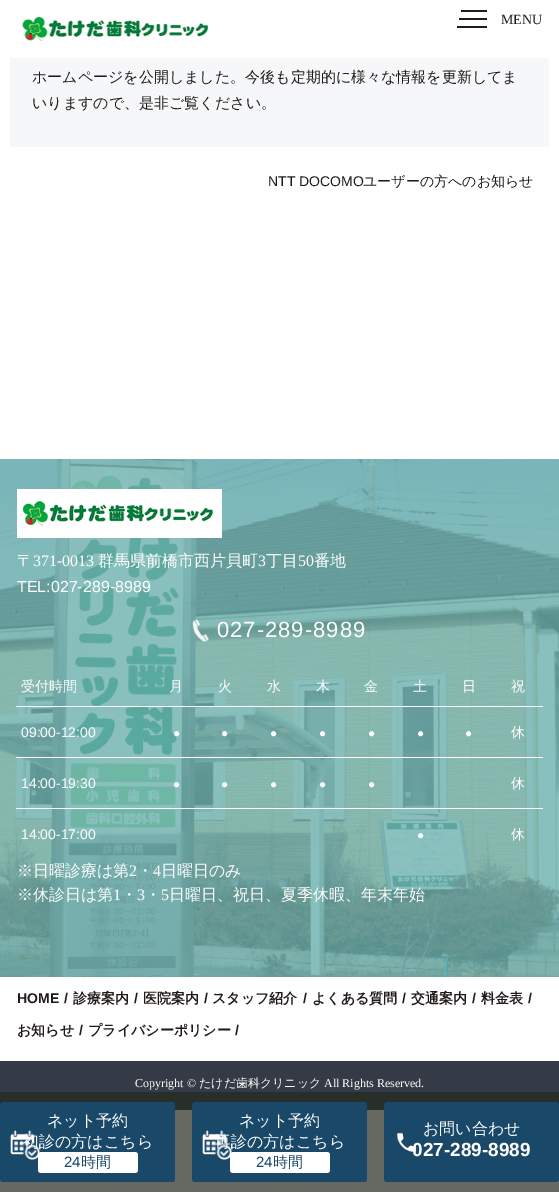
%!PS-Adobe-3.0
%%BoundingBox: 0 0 559 1192
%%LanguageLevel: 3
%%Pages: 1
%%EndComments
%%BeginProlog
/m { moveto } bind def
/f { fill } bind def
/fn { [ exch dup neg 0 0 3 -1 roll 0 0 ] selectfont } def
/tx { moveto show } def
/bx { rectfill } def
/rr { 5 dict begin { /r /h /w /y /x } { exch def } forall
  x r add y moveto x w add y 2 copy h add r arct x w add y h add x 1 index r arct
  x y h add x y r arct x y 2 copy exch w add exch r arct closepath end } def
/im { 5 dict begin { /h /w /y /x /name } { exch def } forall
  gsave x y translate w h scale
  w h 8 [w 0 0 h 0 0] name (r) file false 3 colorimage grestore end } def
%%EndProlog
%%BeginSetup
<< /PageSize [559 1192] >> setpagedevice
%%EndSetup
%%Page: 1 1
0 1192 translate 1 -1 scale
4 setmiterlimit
1 setgray
0 0 559 1192 bx
0.396 0.412 0.384 setrgbcolor
0 1110 559 82 bx
(image0.raw) 22 17 186 24 im
0.129 0.102 0.098 setrgbcolor
459 18 28 2 bx
461 10 26 2 bx
457 26 30 2 bx
/LiberationSerif-Regular 14 fn
(MENU) 501 24 tx
0.961 0.969 0.973 setrgbcolor
10 58 539 89 bx
/WenQuanYiZenHei-Medium 15 fn
0.129 0.102 0.098 setrgbcolor
(ホームページを公開しました。今後も定期的に様々な情報を更新してま) 32 82 tx
(いりますので、是非ご覧ください。) 32 108 tx
/LiberationSans-Regular 14 fn
0.106 setgray
(NTT DOCOMO) 268 186 tx
/WenQuanYiZenHei-Medium 14 fn
(ユーザーの方へのお知らせ) 363 186 tx
(image1.raw) 0 459 559 518 im
(image2.raw) 17 489 205 49 im
/WenQuanYiZenHei-Medium 16 fn
1 setgray
(〒) 17 566 tx
/LiberationSerif-Regular 16 fn
(371-0013) 33 566 tx
/WenQuanYiZenHei-Medium 16 fn
(群馬県前橋市西片貝町) 98 566 tx
/LiberationSerif-Regular 16 fn
(3) 258 566 tx
/WenQuanYiZenHei-Medium 16 fn
(丁目) 266 566 tx
/LiberationSerif-Regular 16 fn
(50) 298 566 tx
/WenQuanYiZenHei-Medium 16 fn
(番地) 314 566 tx
/LiberationSans-Regular 16 fn
(TEL:027-289-8989) 17 592 tx
(image3.raw) 192 619 17 23 im
/LiberationSans-Regular 22 fn
217 637 m 1 0 (027-289-8989) ashow
/WenQuanYiZenHei-Medium 14 fn
(受付時間) 21 691 tx
(月) 169 691 tx
(火) 218 691 tx
(水) 267 691 tx
(木) 316 691 tx
(金) 364 691 tx
(土) 413 691 tx
(日) 462 691 tx
(祝) 511 691 tx
16 706 527 1 bx
/LiberationSans-Regular 14 fn
(09:00-12:00) 21 737 tx
/LiberationSans-Regular 12 fn
(●) 173 737 tx
(●) 221 737 tx
(●) 270 737 tx
(●) 319 737 tx
(●) 368 737 tx
(●) 417 737 tx
(●) 465 737 tx
/WenQuanYiZenHei-Medium 14 fn
(休) 511 737 tx
16 757 527 1 bx
/LiberationSans-Regular 14 fn
(14:00-19:30) 21 788 tx
/LiberationSans-Regular 12 fn
(●) 173 788 tx
(●) 221 788 tx
(●) 270 788 tx
(●) 319 788 tx
(●) 368 788 tx
/WenQuanYiZenHei-Medium 14 fn
(休) 511 788 tx
16 808 527 1 bx
/LiberationSans-Regular 14 fn
(14:00-17:00) 21 839 tx
/LiberationSans-Regular 12 fn
(●) 417 839 tx
/WenQuanYiZenHei-Medium 14 fn
(休) 511 839 tx
/WenQuanYiZenHei-Medium 16 fn
(※日曜診療は第) 17 876 tx
/LiberationSerif-Regular 16 fn
(2) 129 876 tx
/WenQuanYiZenHei-Medium 16 fn
(・) 137 876 tx
/LiberationSerif-Regular 16 fn
(4) 153 876 tx
/WenQuanYiZenHei-Medium 16 fn
(日曜日のみ) 161 876 tx
(※休診日は第) 17 900 tx
/LiberationSerif-Regular 16 fn
(1) 113 900 tx
/WenQuanYiZenHei-Medium 16 fn
(・) 121 900 tx
/LiberationSerif-Regular 16 fn
(3) 137 900 tx
/WenQuanYiZenHei-Medium 16 fn
(・) 145 900 tx
/LiberationSerif-Regular 16 fn
(5) 161 900 tx
/WenQuanYiZenHei-Medium 16 fn
(日曜日、祝日、夏季休暇、年末年始) 169 900 tx
/LiberationSans-Bold 14 fn
0.129 0.102 0.098 setrgbcolor
(HOME) 17 1003 tx
(/) 64 1003 tx
/WenQuanYiZenHei-Bold 14 fn
(診療案内) 73 1003 tx
/LiberationSans-Bold 14 fn
(/) 134 1003 tx
/WenQuanYiZenHei-Bold 14 fn
(医院案内) 143 1003 tx
/LiberationSans-Bold 14 fn
(/) 204 1003 tx
/WenQuanYiZenHei-Bold 14 fn
(スタッフ紹介) 212 1003 tx
/LiberationSans-Bold 14 fn
(/) 303 1003 tx
/WenQuanYiZenHei-Bold 14 fn
(よくある質問) 312 1003 tx
/LiberationSans-Bold 14 fn
(/) 402 1003 tx
/WenQuanYiZenHei-Bold 14 fn
(交通案内) 411 1003 tx
/LiberationSans-Bold 14 fn
(/) 472 1003 tx
/WenQuanYiZenHei-Bold 14 fn
(料金表) 481 1003 tx
/LiberationSans-Bold 14 fn
(/) 528 1003 tx
/WenQuanYiZenHei-Bold 14 fn
(お知らせ) 17 1035 tx
/LiberationSans-Bold 14 fn
(/) 79 1035 tx
/WenQuanYiZenHei-Bold 14 fn
(プライバシーポリシー) 88 1035 tx
/LiberationSans-Bold 14 fn
(/) 235 1035 tx
0.208 0.231 0.275 setrgbcolor
0 1061 559 31 bx
0.157 0.18 0.165 setrgbcolor
0 1092 559 18 bx
/LiberationSerif-Regular 12 fn
1 setgray
(Copyright ©) 135 1087 tx
/WenQuanYiZenHei-Medium 12 fn
(たけだ歯科クリニック) 199 1087 tx
/LiberationSerif-Regular 12 fn
(All Rights Reserved.) 324 1087 tx
0.102 0.282 0.408 setrgbcolor
0 1102 175 80 3 rr f
/WenQuanYiZenHei-Medium 16 fn
1 setgray
(ネット予約) 47 1126 tx
(初診の方はこちら) 23 1147 tx
38 1152 100 21 3 rr f
(image4.raw) 10 1130 30 30 im
/LiberationSans-Regular 15 fn
0.102 0.282 0.408 setrgbcolor
(24) 64 1167 tx
/WenQuanYiZenHei-Medium 15 fn
(時間) 81 1167 tx
192 1102 175 80 3 rr f
/WenQuanYiZenHei-Medium 16 fn
1 setgray
(ネット予約) 239 1126 tx
(再診の方はこちら) 215 1147 tx
230 1152 100 21 3 rr f
(image5.raw) 202 1130 30 30 im
/LiberationSans-Regular 15 fn
0.102 0.282 0.408 setrgbcolor
(24) 256 1167 tx
/WenQuanYiZenHei-Medium 15 fn
(時間) 273 1167 tx
384 1102 175 80 3 rr f
/LiberationSans-Bold 19 fn
1 setgray
(027-289-8989) 412 1156 tx
(image6.raw) 396 1132 21 21 im
/WenQuanYiZenHei-Medium 16 fn
(お問い合わせ) 423 1134 tx
showpage
%%EOF
